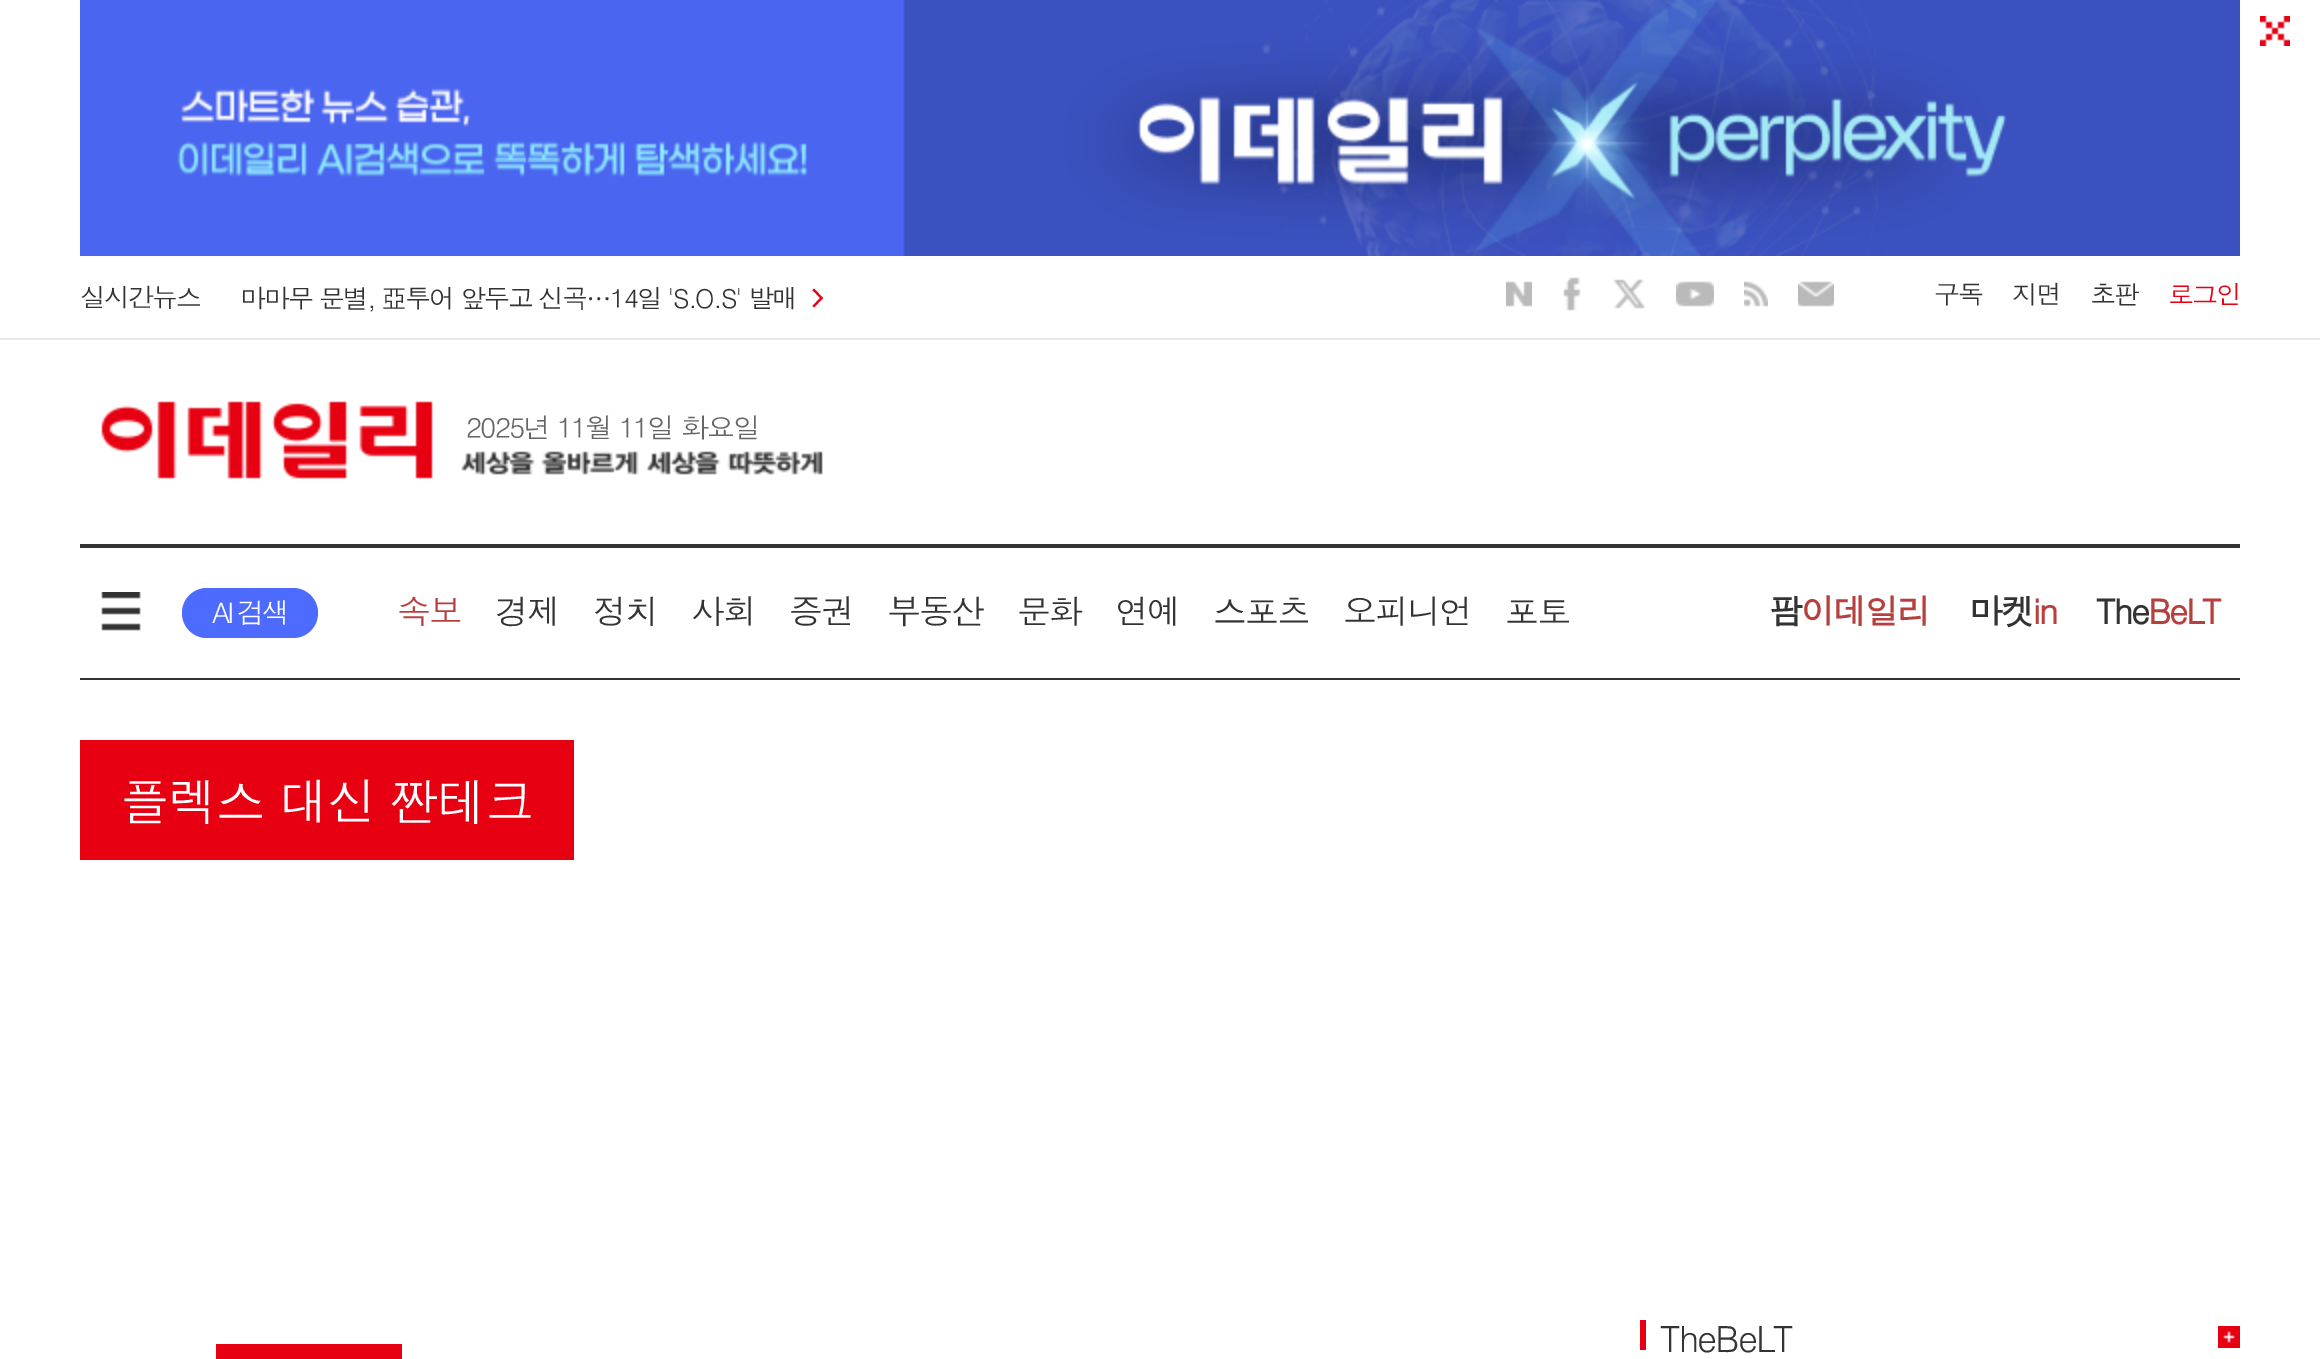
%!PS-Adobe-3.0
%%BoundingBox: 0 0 2320 1359
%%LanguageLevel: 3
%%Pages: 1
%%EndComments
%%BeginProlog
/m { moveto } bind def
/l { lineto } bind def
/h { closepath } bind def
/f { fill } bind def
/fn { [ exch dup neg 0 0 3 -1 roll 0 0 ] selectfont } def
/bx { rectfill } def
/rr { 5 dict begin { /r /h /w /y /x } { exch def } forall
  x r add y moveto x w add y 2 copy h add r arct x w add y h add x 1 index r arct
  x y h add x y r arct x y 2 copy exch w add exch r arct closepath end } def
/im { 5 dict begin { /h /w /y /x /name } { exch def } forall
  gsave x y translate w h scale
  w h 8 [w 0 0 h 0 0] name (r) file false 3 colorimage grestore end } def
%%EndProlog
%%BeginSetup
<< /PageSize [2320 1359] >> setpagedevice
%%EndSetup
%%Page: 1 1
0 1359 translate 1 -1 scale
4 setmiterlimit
1 setgray
0 0 2320 1359 bx
(image0.raw) 80 0 2160 256 im
(image1.raw) 2260 16 30 30 im
0.918 setgray
0 338 2320 2 bx
/Dotum-Regular 26 fn
0.2 setgray
80 307 m -2 0 (실시간뉴스) ashow
240 308 m -2 0 (마마무 문별, 亞투어 앞두고 신곡…14일 'S.O.S' 발매) ashow
0.902 0 0.071 setrgbcolor
814 307.5 m 823 298 l 814 288.5 l 812.5 290 l 820 298 l 812.5 306 l h f
(image2.raw) 1506 281 26 26 im
(image3.raw) 1563 277 18 34 im
(image4.raw) 1613 279 33 30 im
(image5.raw) 1676 281 38 26 im
(image6.raw) 1744 281 24 26 im
(image7.raw) 1798 281 36 26 im
0.2 setgray
1934 304 m -2 0 (구독) ashow
2012 304 m -2 0 (지면) ashow
2090 304 m -2 0 (초판) ashow
0.902 0 0.071 setrgbcolor
2168 304 m -2 0 (로그인) ashow
(image8.raw) 101 401 722 78 im
/Dotum-Regular 28 fn
0.4 setgray
466 438 m -2 0 (2025년 11월 11일 화요일) ashow
0.2 setgray
80 544 2160 4 bx
80 678 2160 2 bx
(image9.raw) 101 592 40 39 im
0.302 0.42 0.996 setrgbcolor
182 588 136 50 25 rr f
1 setgray
212 623 m -3.25 0 (AI 검색) ashow
/Dotum-Regular 34 fn
0.714 0.251 0.243 setrgbcolor
397 624 m -2 0 (속보) ashow
0.2 setgray
495 624 m -2 0 (경제) ashow
593 624 m -2 0 (정치) ashow
691 624 m -2 0 (사회) ashow
789 624 m -2 0 (증권) ashow
887 624 m -2 0 (부동산) ashow
1017 624 m -2 0 (문화) ashow
1115 624 m -2 0 (연예) ashow
1213 624 m -2 0 (스포츠) ashow
1343 624 m -2 0 (오피니언) ashow
1505 624 m -2 0 (포토) ashow
/Dotum-Bold 34 fn
1769 624 m -2 0 (팜) ashow
0.714 0.251 0.243 setrgbcolor
1801 624 m -2 0 (이데일리) ashow
0.2 setgray
1969 624 m -2 0 (마켓) ashow
0.714 0.251 0.243 setrgbcolor
2033 624 m -2 0 (in) ashow
0.2 setgray
2096 624 m -2 0 (The) ashow
0.714 0.251 0.243 setrgbcolor
2148 624 m -2 0 (BeLT) ashow
0.902 0 0.071 setrgbcolor
80 740 494 120 bx
/Dotum-Regular 50 fn
1 setgray
120 820 m -2 0 (플렉스 대신 짠테크) ashow
0.902 0 0.071 setrgbcolor
216 1344 186 15 bx
1640 1320 6 30 bx
/Dotum-Regular 36 fn
0.2 setgray
1660 1352 m -2 0 (TheBeLT) ashow
(image10.raw) 2218 1326 22 22 im
showpage
%%EOF
